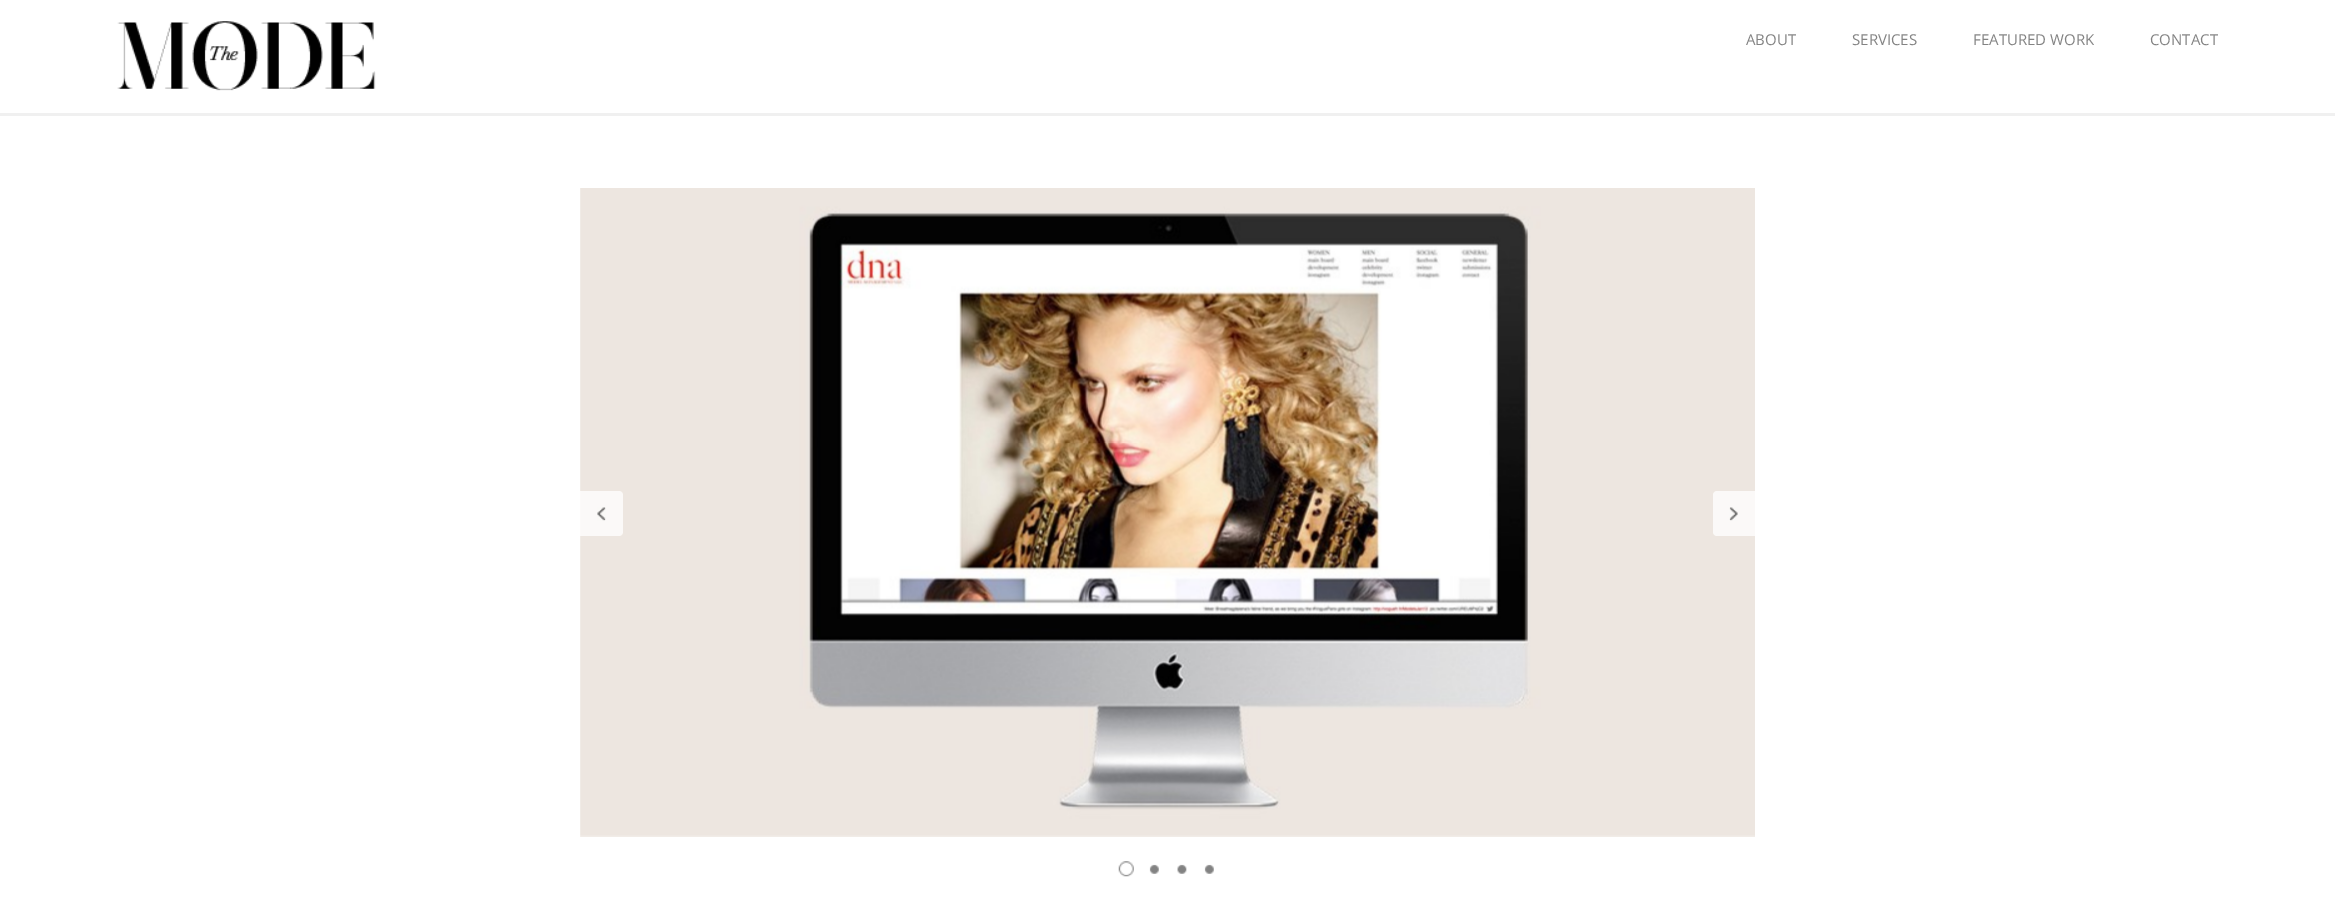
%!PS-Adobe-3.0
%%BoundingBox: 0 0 2335 908
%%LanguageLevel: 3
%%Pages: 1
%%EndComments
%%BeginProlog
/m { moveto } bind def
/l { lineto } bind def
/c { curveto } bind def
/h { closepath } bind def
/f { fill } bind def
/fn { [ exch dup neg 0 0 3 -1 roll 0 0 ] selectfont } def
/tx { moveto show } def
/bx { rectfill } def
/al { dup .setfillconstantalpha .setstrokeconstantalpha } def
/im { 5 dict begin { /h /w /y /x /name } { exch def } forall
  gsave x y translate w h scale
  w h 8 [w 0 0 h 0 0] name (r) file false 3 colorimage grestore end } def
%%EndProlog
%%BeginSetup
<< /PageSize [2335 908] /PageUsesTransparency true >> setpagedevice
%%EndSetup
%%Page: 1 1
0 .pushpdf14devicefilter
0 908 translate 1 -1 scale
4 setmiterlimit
1 setgray
0 0 2335 908 bx
0.941 setgray
0 113 2335 3 bx
(image0.raw) 117 21 259 70 im
/OpenSans-Regular 15 fn
0.514 setgray
(ABOUT) 1746 45 tx
(SERVICES) 1852 45 tx
(FEATURED WORK) 1973 45 tx
(CONTACT) 2150 45 tx
(image1.raw) 580 188 1175 649 im
0.5 al
1 setgray
580 491 m 619 491 l 621 491 623 493 623 495 c 623 532 l 623 534 621 536 619 536 c 580 536 l h f
1 al
(image2.raw) 597 507 9 14 im
0.5 al
580 491 m 619 491 l 621 491 623 493 623 495 c 623 532 l 623 534 621 536 619 536 c 580 536 l h f
1 al
(image3.raw) 597 507 9 14 im
0.965 0.953 0.941 setrgbcolor
1717 491 m 1755 491 l 1755 536 l 1717 536 l 1715 536 1713 534 1713 532 c 1713 495 l 1713 493 1715 491 1717 491 c h f
(image4.raw) 1729 507 9 14 im
0.5 al
1 setgray
1717 491 m 1755 491 l 1755 536 l 1717 536 l 1715 536 1713 534 1713 532 c 1713 495 l 1713 493 1715 491 1717 491 c h f
1 al
(image5.raw) 1729 507 9 14 im
(image6.raw) 1118 861 16 16 im
(image7.raw) 1149 864 10 10 im
(image8.raw) 1177 864 10 10 im
(image7.raw) 1204 864 10 10 im
.poppdf14devicefilter showpage
%%EOF
